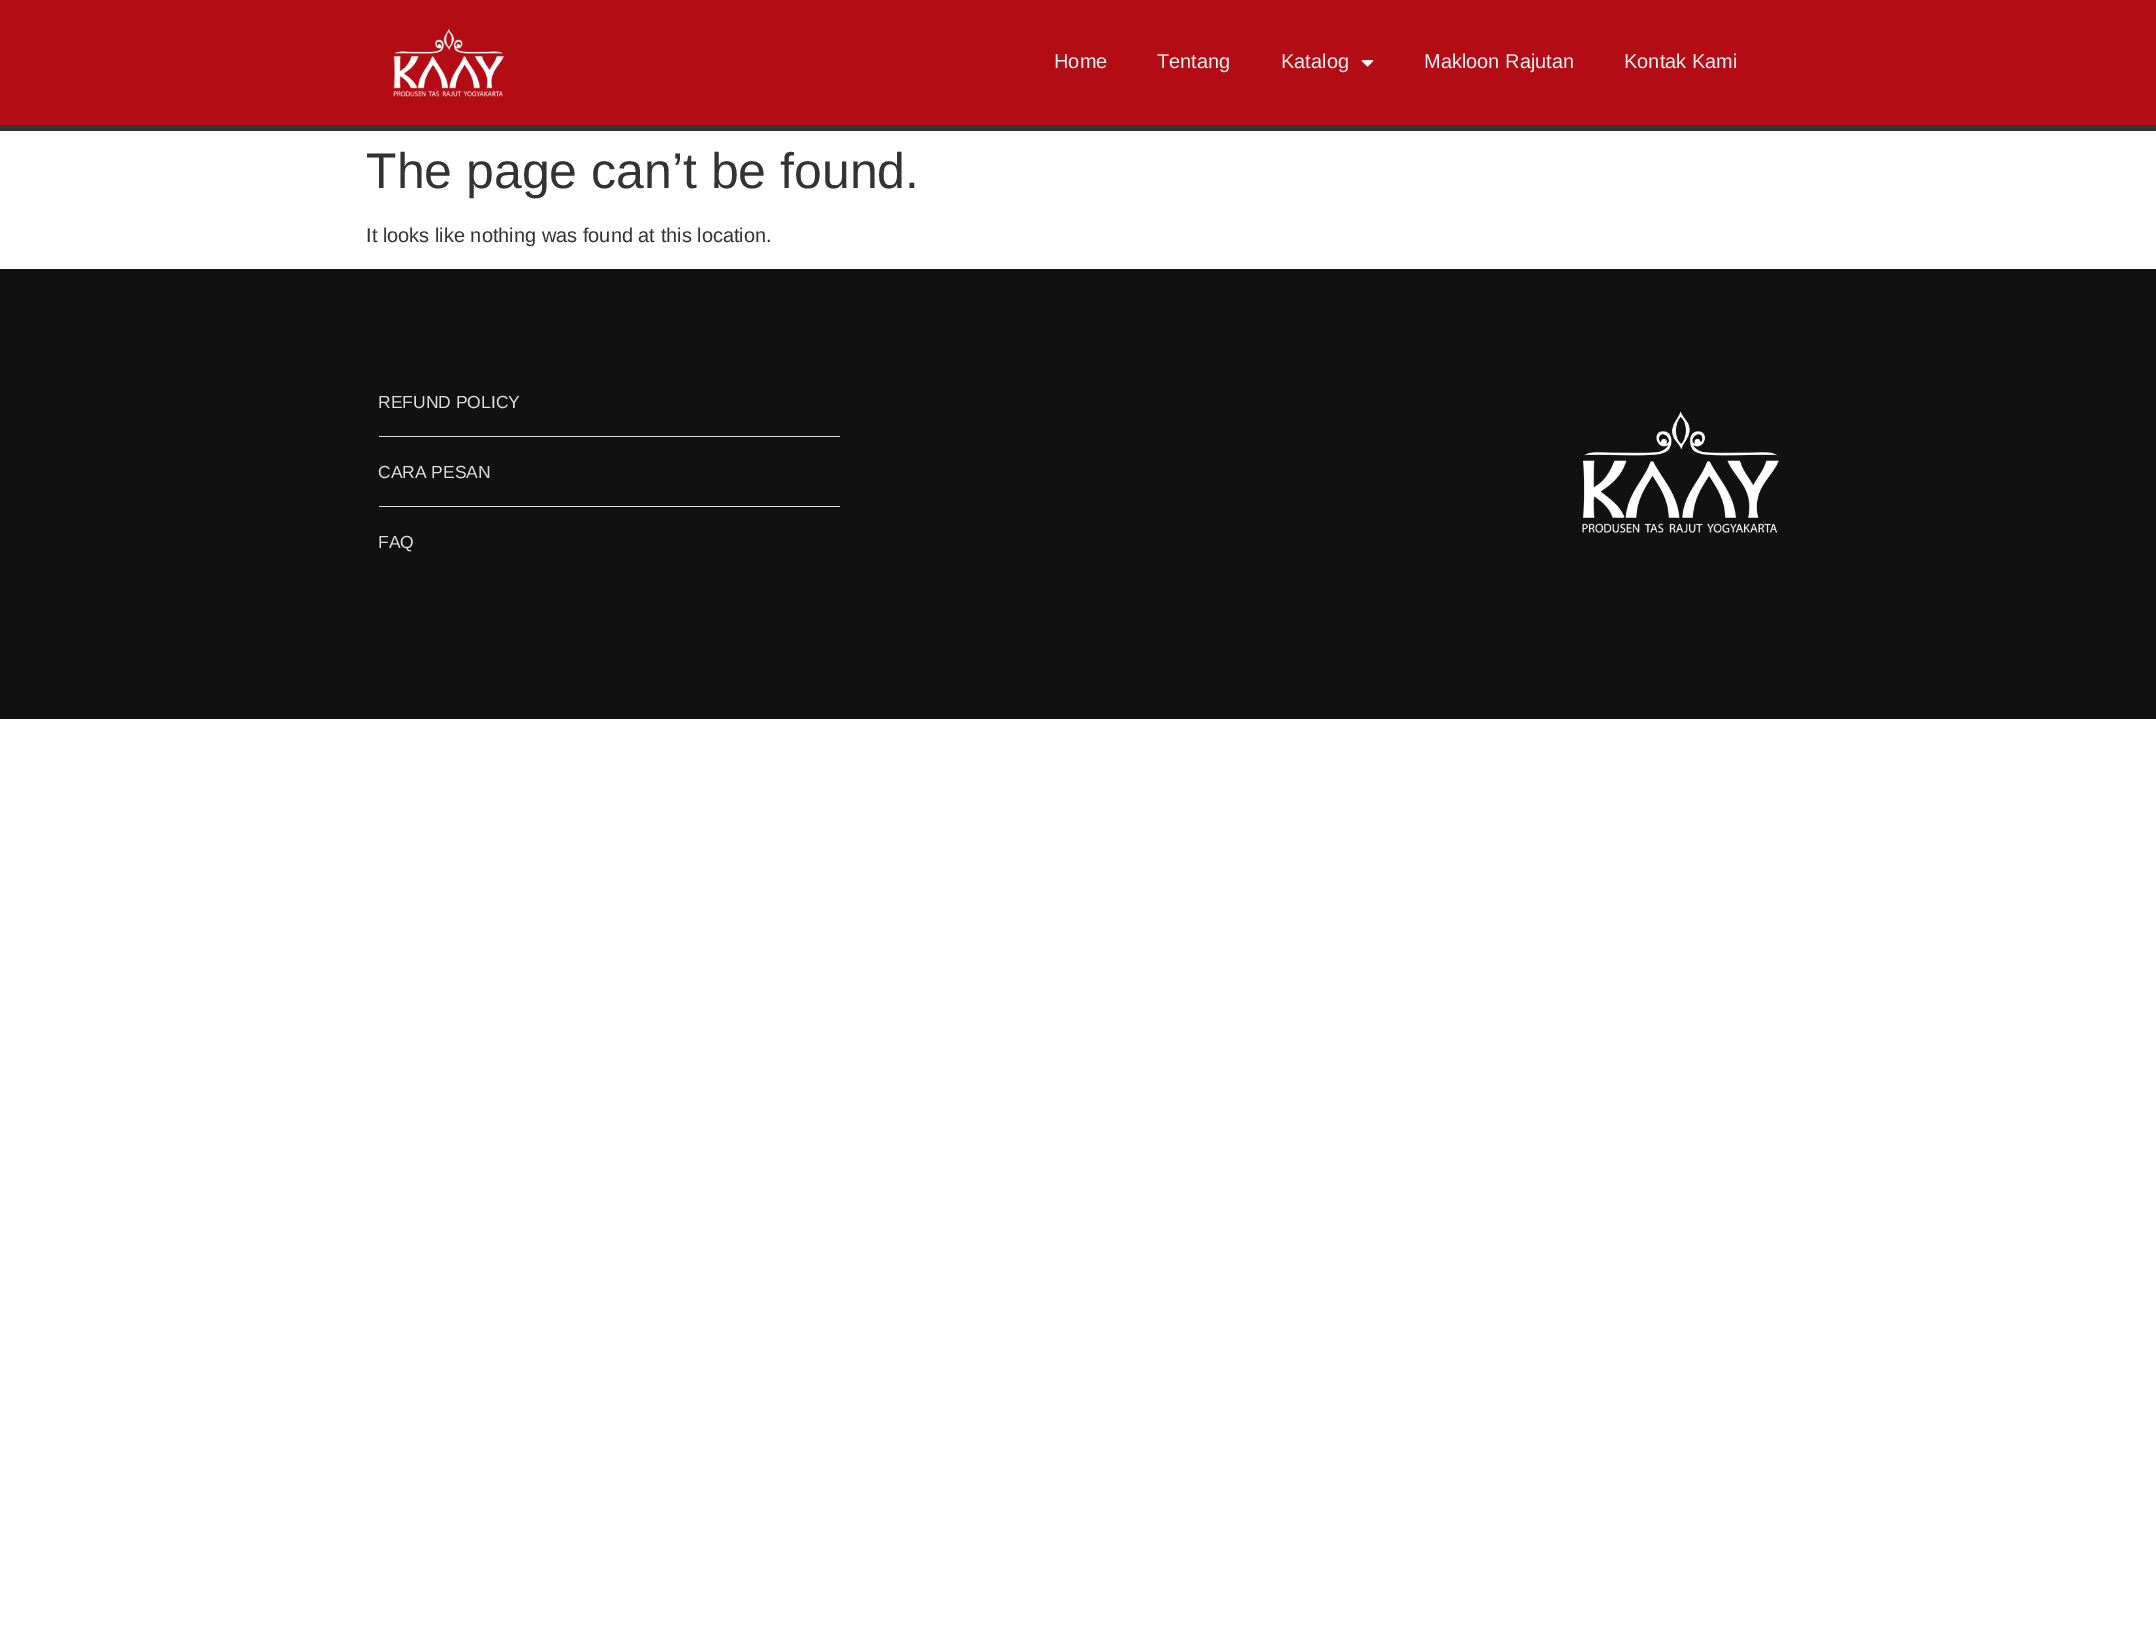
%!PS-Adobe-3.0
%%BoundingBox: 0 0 2156 1642
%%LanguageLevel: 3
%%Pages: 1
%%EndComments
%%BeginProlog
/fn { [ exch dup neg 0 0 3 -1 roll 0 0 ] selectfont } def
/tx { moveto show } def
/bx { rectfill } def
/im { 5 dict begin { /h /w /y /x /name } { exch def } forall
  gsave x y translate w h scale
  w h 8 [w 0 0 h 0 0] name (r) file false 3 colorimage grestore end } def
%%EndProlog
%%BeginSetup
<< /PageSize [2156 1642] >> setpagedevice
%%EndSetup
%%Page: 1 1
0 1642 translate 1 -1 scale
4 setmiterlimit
1 setgray
0 0 2156 1642 bx
0.706 0.047 0.078 setrgbcolor
0 0 2156 125 bx
0.2 setgray
0 125 2156 6 bx
(image0.raw) 393 28 111 69 im
/LiberationSans-Regular 20 fn
0.953 setgray
(Home) 1054 68 tx
(Tentang) 1157 68 tx
(Katalog) 1281 68 tx
(image1.raw) 1361 60 13 7 im
(Makloon Rajutan) 1424 68 tx
(Kontak Kami) 1624 68 tx
/LiberationSans-Regular 50 fn
0.2 setgray
(The page can’t be found.) 366 188 tx
/LiberationSans-Regular 20 fn
(It looks like nothing was found at this location.) 366 242 tx
0.067 setgray
0 269 2156 450 bx
/LiberationSans-Regular 17.5 fn
0.867 setgray
(REFUND POLICY) 378 408 tx
379 436 461 1 bx
(CARA PESAN) 378 478 tx
379 506 461 1 bx
(FAQ) 378 548 tx
(image2.raw) 1582 411 197 122 im
showpage
%%EOF
